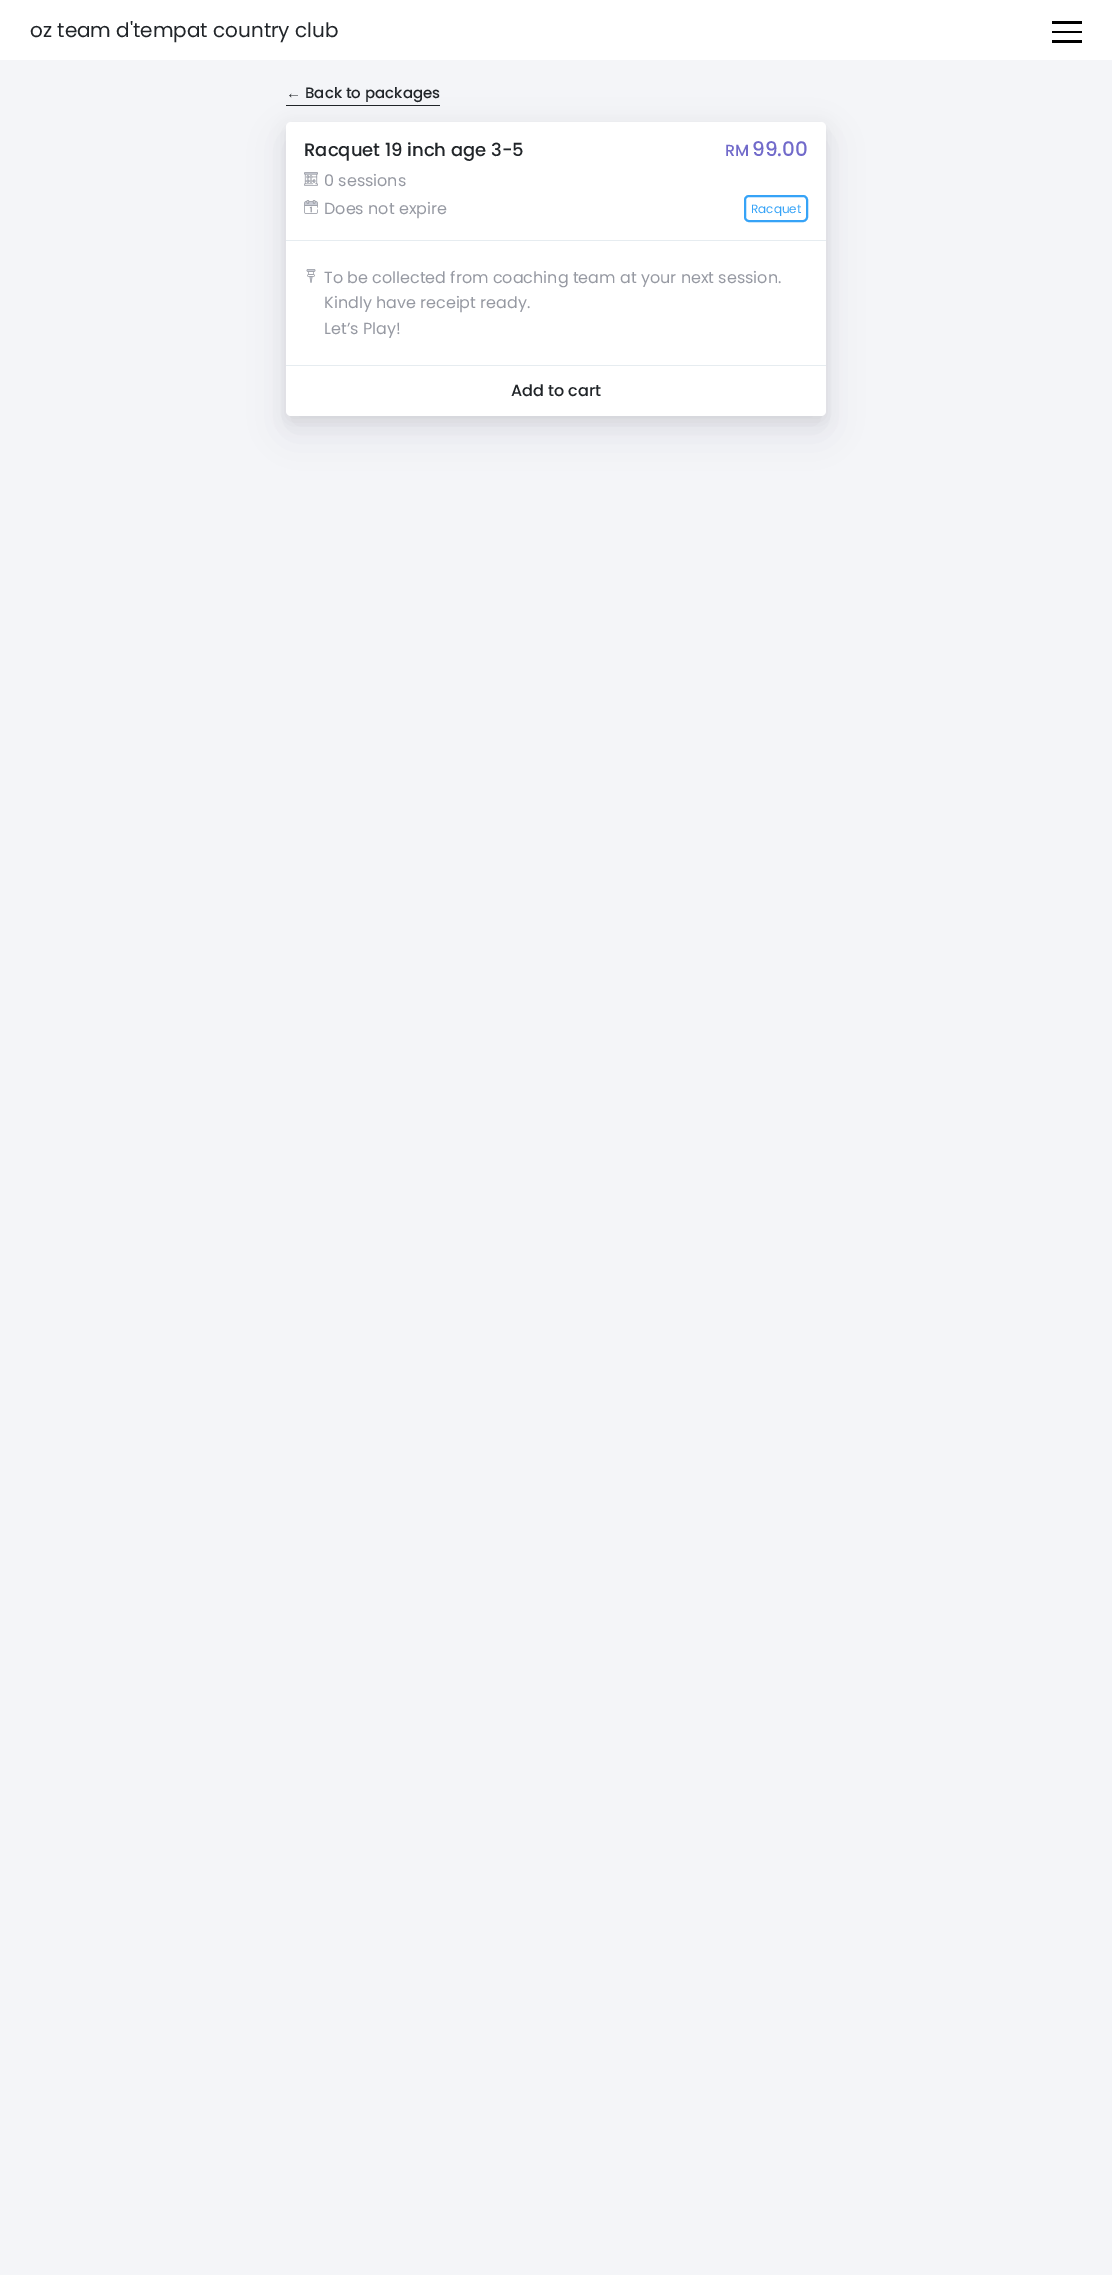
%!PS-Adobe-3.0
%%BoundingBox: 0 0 1112 2275
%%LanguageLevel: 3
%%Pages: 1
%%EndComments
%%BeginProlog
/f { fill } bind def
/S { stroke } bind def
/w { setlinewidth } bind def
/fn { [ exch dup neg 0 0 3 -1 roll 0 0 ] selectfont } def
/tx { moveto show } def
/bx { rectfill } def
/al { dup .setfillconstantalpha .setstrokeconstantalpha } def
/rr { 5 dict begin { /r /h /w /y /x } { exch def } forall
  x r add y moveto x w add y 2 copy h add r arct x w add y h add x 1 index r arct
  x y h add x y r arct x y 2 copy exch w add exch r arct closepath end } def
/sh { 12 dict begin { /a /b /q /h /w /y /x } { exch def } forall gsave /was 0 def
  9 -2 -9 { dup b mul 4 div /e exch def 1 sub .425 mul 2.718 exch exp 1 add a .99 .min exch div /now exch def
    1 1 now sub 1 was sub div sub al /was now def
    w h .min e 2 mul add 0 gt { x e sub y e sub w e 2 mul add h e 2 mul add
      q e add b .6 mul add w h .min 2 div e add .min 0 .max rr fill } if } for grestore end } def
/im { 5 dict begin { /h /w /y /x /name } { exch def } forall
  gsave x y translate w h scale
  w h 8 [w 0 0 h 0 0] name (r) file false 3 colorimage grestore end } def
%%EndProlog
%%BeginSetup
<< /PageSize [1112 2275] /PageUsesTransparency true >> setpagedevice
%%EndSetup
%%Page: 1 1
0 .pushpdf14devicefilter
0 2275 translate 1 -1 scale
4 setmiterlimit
1 setgray
0 0 1112 2275 bx
/Poppins-Regular 20 fn
0.129 0.145 0.161 setrgbcolor
(oz team d'tempat country club) 30 37 tx
0 setgray
1052 21 30 3 bx
1052 31 30 2 bx
1052 40 30 3 bx
0.957 0.961 0.973 setrgbcolor
0 60 1112 2215 bx
0 setgray
286 127 540 294 5 7.5 0.07 sh
0.196 0.196 0.365 setrgbcolor
286 137 540 294 5 17.5 0.1 sh
0.129 0.145 0.161 setrgbcolor
286 105 154 1 bx
/LiberationSans-Regular 15 fn
(←) 286 98 tx
/Poppins-Medium 15 fn
(Back to packages) 305 98 tx
1 setgray
286 122 540 294 5 rr f
/Poppins-Medium 18 fn
0.129 0.145 0.161 setrgbcolor
(Racquet 19 inch age 3-5) 304 156 tx
/Poppins-Medium 16 fn
0.443 0.416 0.792 setrgbcolor
(RM) 725 156 tx
/Poppins-Medium 20 fn
(99.00) 752 156 tx
(image0.raw) 304 172 14 14 im
/Poppins-Regular 16 fn
0.588 0.6 0.635 setrgbcolor
(0 sessions) 324 186 tx
(image1.raw) 304 200 14 14 im
(Does not expire) 324 214 tx
0.212 0.639 0.969 setrgbcolor
2 w
745 196 62 25 4 rr S
/Poppins-Regular 12 fn
(Racquet) 751 213 tx
0.902 0.925 0.941 setrgbcolor
286 240 540 1 bx
(image2.raw) 306 269 10 14 im
/Poppins-Regular 16 fn
0.588 0.6 0.635 setrgbcolor
(To be collected from coaching team at your next session.) 324 283 tx
(Kindly have receipt ready.) 324 308 tx
(Let’s Play!) 324 334 tx
0.902 0.925 0.941 setrgbcolor
286 365 540 1 bx
/Poppins-Medium 16 fn
0.129 0.145 0.161 setrgbcolor
(Add to cart) 511 396 tx
.poppdf14devicefilter showpage
%%EOF
